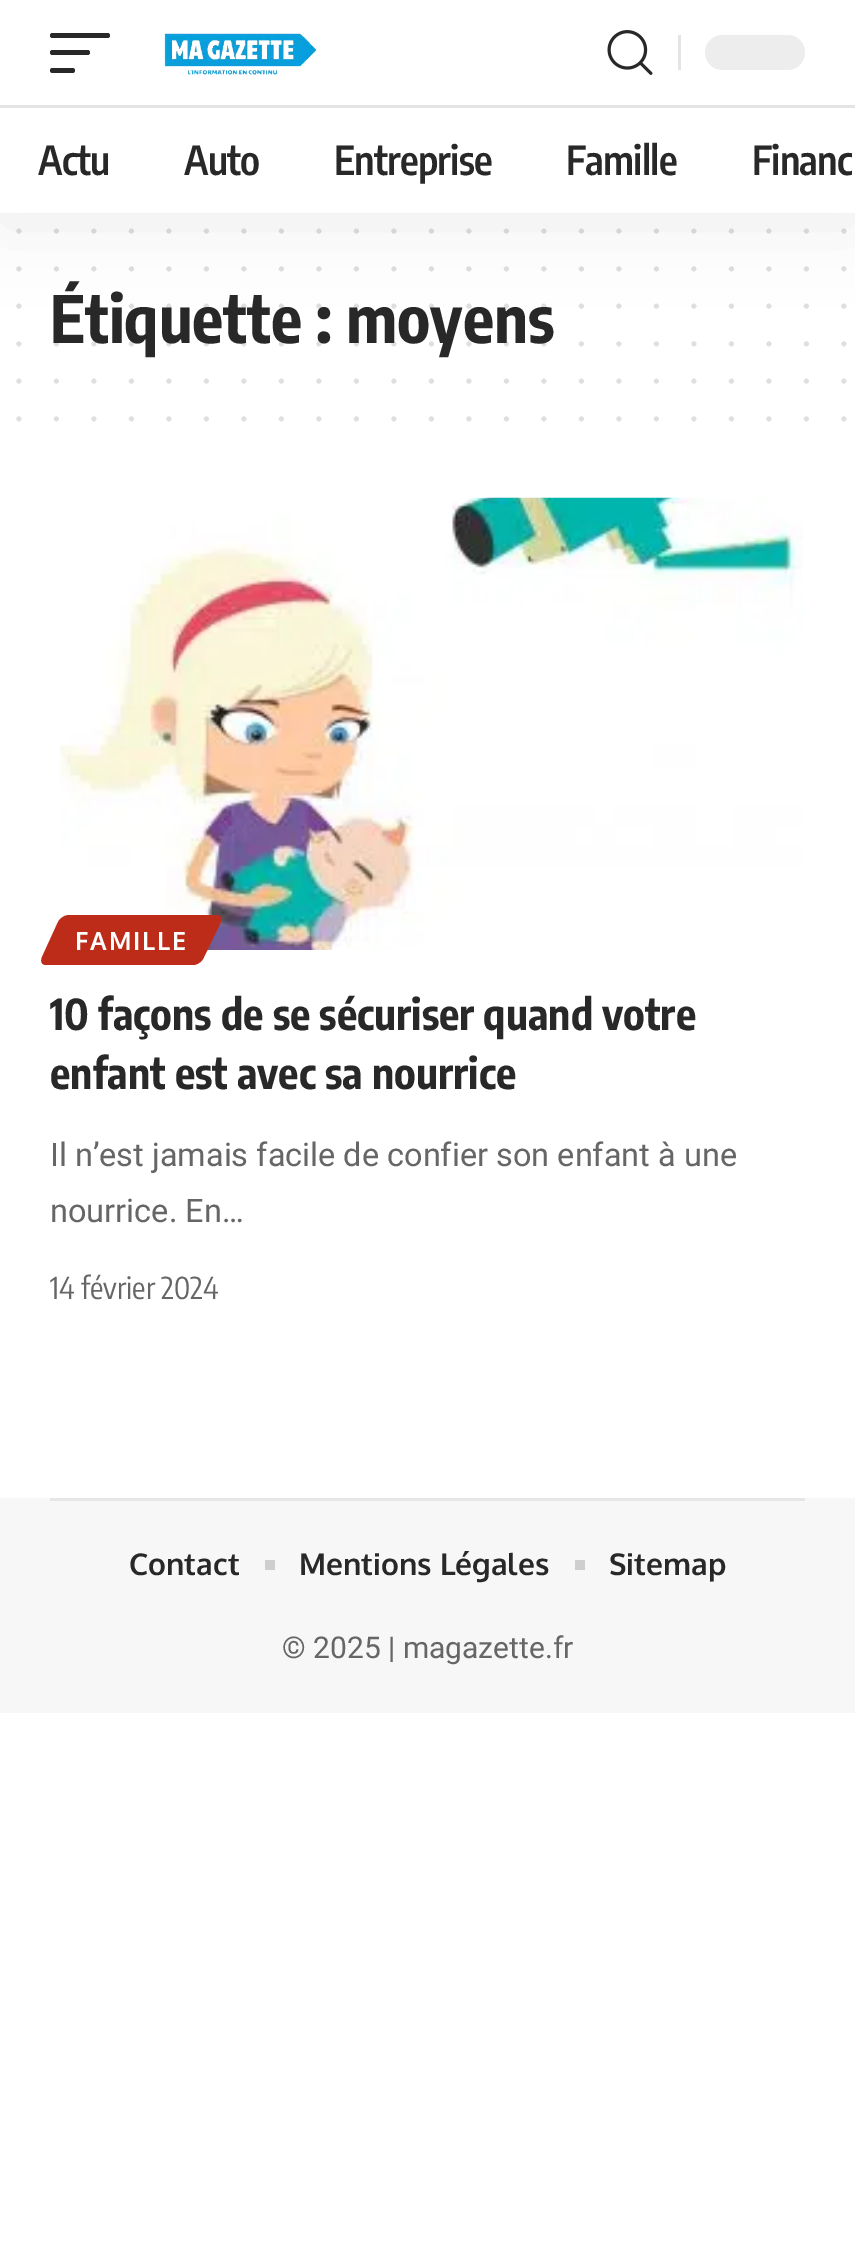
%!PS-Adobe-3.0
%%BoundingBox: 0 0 855 2268
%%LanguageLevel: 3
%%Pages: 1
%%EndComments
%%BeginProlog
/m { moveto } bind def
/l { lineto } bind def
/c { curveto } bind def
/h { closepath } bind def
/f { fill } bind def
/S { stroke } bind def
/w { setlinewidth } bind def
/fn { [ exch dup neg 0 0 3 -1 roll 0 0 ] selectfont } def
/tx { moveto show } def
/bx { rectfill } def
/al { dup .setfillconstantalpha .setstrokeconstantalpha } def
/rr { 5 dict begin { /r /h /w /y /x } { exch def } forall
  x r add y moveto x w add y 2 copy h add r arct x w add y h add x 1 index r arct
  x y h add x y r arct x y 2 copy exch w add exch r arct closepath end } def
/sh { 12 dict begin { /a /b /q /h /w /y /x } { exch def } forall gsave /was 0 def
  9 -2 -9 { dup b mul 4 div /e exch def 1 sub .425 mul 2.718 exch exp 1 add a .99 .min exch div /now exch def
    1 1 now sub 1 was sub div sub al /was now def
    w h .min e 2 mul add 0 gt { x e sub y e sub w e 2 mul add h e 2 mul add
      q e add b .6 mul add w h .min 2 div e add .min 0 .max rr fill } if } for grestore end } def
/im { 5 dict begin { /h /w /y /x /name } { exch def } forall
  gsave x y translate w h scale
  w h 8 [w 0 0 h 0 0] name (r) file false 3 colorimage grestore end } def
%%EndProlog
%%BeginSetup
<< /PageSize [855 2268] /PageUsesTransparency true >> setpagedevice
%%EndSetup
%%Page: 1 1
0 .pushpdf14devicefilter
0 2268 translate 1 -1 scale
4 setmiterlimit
1 setgray
0 0 855 2268 bx
0.875 setgray
5 w
1 setlinecap
[0 37.5] 0 setdash
18.8 231.2 m 844.2 231.2 l S
18.8 268.8 m 844.2 268.8 l S
/EncodeSansCondensed-Bold 65 fn
0.157 setgray
(Étiquette : moyens) 50 343 tx
0.15 al
18.8 306.2 m 844.2 306.2 l S
1 al
0 setgray
0 10 855 213 0 37.5 0.07 sh
1 setgray
0 0 855 213 bx
0.157 setgray
50 33 60 5 2.5 rr f
50 50 40 5 2.5 rr f
50 68 25 5 2.5 rr f
(image0.raw) 164 33 153 42 im
(image1.raw) 607 30 46 45 im
0.894 setgray
678 35 3 35 bx
0.929 setgray
705 35 100 35 17.5 rr f
0.894 setgray
0 105 855 3 bx
/EncodeSansCondensed-SemiBold 40 fn
0.157 setgray
38 175 m -0.75 0 (Actu) ashow
184 175 m -0.75 0 (Auto) ashow
334 175 m -0.75 0 (Entreprise) ashow
566 175 m -0.75 0 (Famille) ashow
752 175 m -0.75 0 (Financ) ashow
0.15 al
18.8 343.8 m 844.2 343.8 l S
1 al
0.875 setgray
18.8 381.2 m 844.2 381.2 l S
18.8 418.8 m 844.2 418.8 l S
(image2.raw) 59 497 744 453 im
0.737 0.173 0.098 setrgbcolor
69 915 m 217 915 l 221 915 222 918 221 922 c 204 957 l 202 962 197 965 193 965 c 46 965 l 42 965 40 962 42 957 c 58 922 l 60 918 65 915 69 915 c h f
/Oxygen-Bold 25 fn
1 setgray
75 950 m 1.75 0 (FAMILLE) ashow
/EncodeSansCondensed-Bold 42.5 fn
0.157 setgray
(10 façons de se sécuriser quand votre) 50 1030 tx
(enfant est avec sa nourrice) 50 1089 tx
/Roboto-Regular 32.5 fn
0.4 setgray
(Il n’est jamais facile de confier son enfant à une) 50 1166 tx
(nourrice. En…) 50 1222 tx
/EncodeSansCondensed-Regular 30 fn
(14 février 2024) 50 1299 tx
0.969 setgray
0 1498 855 215 bx
0.902 setgray
50 1498 755 3 bx
/Oxygen-Bold 30 fn
0.157 setgray
(Contact) 129 1575 tx
0.808 setgray
265 1560 10 10 bx
0.157 setgray
(Mentions Légales) 299 1575 tx
0.808 setgray
575 1560 10 10 bx
0.157 setgray
(Sitemap) 609 1575 tx
/Roboto-Regular 30 fn
0.4 setgray
(© 2025 | magazette.fr) 282 1658 tx
.poppdf14devicefilter showpage
%%EOF
